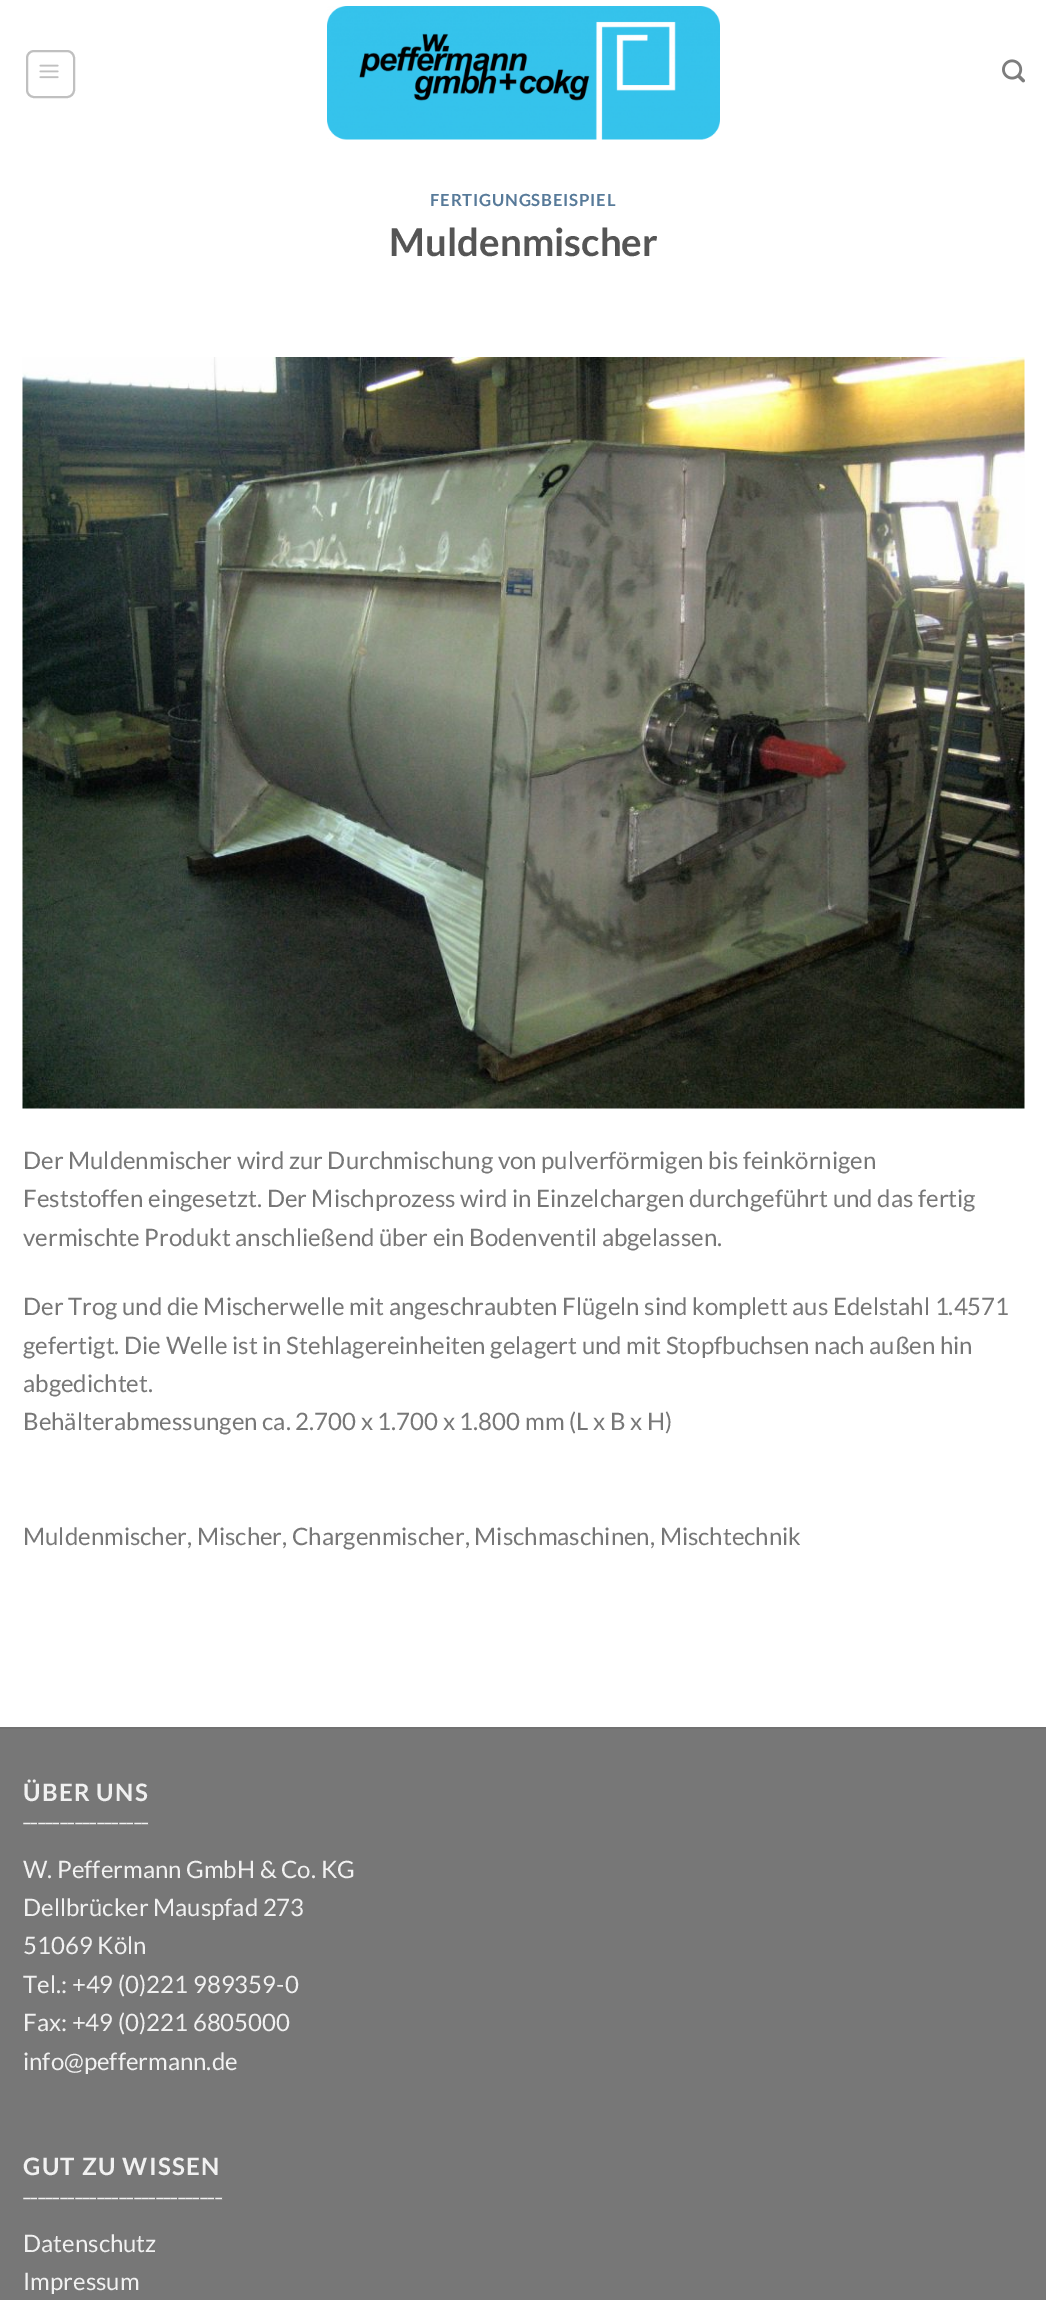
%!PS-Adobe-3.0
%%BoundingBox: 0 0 1046 2300
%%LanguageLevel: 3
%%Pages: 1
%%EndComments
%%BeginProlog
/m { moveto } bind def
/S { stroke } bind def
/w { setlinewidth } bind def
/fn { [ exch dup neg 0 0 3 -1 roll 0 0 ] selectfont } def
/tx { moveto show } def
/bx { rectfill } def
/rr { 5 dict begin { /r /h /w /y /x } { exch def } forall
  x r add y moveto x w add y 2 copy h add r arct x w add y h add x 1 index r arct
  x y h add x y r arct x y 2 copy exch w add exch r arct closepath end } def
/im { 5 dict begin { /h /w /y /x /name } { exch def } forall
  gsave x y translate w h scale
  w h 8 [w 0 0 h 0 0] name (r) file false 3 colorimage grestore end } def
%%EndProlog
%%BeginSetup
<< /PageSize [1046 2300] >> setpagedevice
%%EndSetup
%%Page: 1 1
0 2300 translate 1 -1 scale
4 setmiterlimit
1 setgray
0 0 1046 2300 bx
0.753 setgray
2 w
27 51 47 46 7 rr S
(image0.raw) 39 64 20 15 im
(image1.raw) 327 6 393 134 im
(image2.raw) 1002 59 23 24 im
/Lato-Bold 16.75 fn
0.341 0.478 0.6 setrgbcolor
430 206 m 0.8 0 (FERTIGUNGSBEISPIEL) ashow
/Lato-Bold 38.5 fn
0.333 setgray
(Muldenmischer) 389 256 tx
(image3.raw) 22 357 1003 752 im
/Lato-Regular 24 fn
0.467 setgray
(Der Muldenmischer wird zur Durchmischung von pulverförmigen bis feinkörnigen) 23 1169 tx
(Feststoffen eingesetzt. Der Mischprozess wird in Einzelchargen durchgeführt und das fertig) 23 1207 tx
(vermischte Produkt anschließend über ein Bodenventil abgelassen.) 23 1246 tx
(Der Trog und die Mischerwelle mit angeschraubten Flügeln sind komplett aus Edelstahl 1.4571) 23 1315 tx
(gefertigt. Die Welle ist in Stehlagereinheiten gelagert und mit Stopfbuchsen nach außen hin) 23 1354 tx
(abgedichtet.) 23 1392 tx
(Behälterabmessungen ca. 2.700 x 1.700 x 1.800 mm \(L x B x H\)) 23 1430 tx
(Muldenmischer, Mischer, Chargenmischer, Mischmaschinen, Mischtechnik) 23 1545 tx
0 1729 1046 571 bx
0.443 setgray
0 1727 1046 2 bx
/Lato-Bold 24 fn
0.945 setgray
23 1801 m 1.25 0 (ÜBER UNS) ashow
/Lato-Regular 24 fn
(¯¯¯¯¯¯¯¯¯¯¯¯¯¯¯¯¯) 23 1839 tx
(W. Peffermann GmbH & Co. KG) 23 1878 tx
(Dellbrücker Mauspfad 273) 23 1916 tx
(51069 Köln) 23 1954 tx
(Tel.: +49 \(0\)221 989359-0) 23 1993 tx
(Fax: +49 \(0\)221 6805000) 23 2031 tx
(info@peffermann.de) 23 2070 tx
/Lato-Bold 24 fn
23 2175 m 1.25 0 (GUT ZU WISSEN) ashow
/Lato-Regular 24 fn
(¯¯¯¯¯¯¯¯¯¯¯¯¯¯¯¯¯¯¯¯¯¯¯¯¯¯¯) 23 2214 tx
(Datenschutz) 23 2252 tx
(Impressum) 23 2290 tx
showpage
%%EOF
